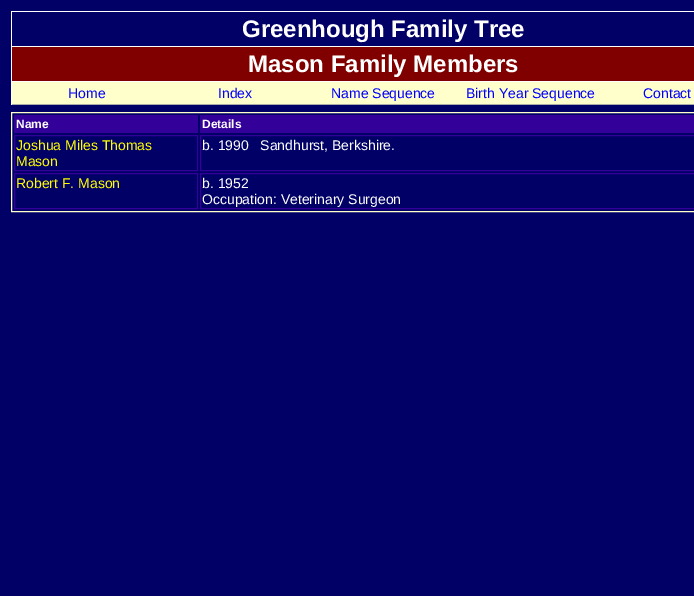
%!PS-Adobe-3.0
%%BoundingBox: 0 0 694 596
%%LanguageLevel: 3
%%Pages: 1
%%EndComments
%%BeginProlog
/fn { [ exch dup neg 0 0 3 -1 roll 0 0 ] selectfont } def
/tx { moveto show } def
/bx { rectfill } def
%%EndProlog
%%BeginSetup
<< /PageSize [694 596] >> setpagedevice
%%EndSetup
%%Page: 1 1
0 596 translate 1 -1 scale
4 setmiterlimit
0 0 0.4 setrgbcolor
0 0 694 596 bx
1 setgray
11 11 683 1 bx
11 11 1 35 bx
/LiberationSans-Bold 24 fn
(Greenhough Family Tree) 242 37 tx
0.502 0 0 setrgbcolor
12 47 682 34 bx
1 setgray
11 46 683 1 bx
11 46 1 35 bx
(Mason Family Members) 248 72 tx
1 1 0.8 setrgbcolor
12 82 682 22 bx
1 setgray
11 81 683 1 bx
0.667 setgray
11 104 683 1 bx
1 setgray
11 81 1 24 bx
/LiberationSans-Regular 14 fn
0 0 1 setrgbcolor
(Home) 68 98 tx
(Index) 218 98 tx
(Name Sequence) 331 98 tx
(Birth Year Sequence) 466 98 tx
(Contact) 643 98 tx
1 1 0.8 setrgbcolor
11.5 112.5 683 99 rectstroke
0.2 0 0.6 setrgbcolor
14 115 184 18 bx
/LiberationSans-Bold 12 fn
1 setgray
(Name) 16 128 tx
0.2 0 0.6 setrgbcolor
200 115 494 18 bx
1 setgray
(Details) 202 128 tx
0.2 0 0.6 setrgbcolor
14.5 135.5 183 35 rectstroke
/LiberationSans-Regular 14 fn
1 1 0 setrgbcolor
(Joshua Miles Thomas) 16 150 tx
(Mason) 16 166 tx
0.2 0 0.6 setrgbcolor
200.5 135.5 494 35 rectstroke
1 setgray
(b. 1990   Sandhurst, Berkshire.) 202 150 tx
0.2 0 0.6 setrgbcolor
14.5 173.5 183 35 rectstroke
1 1 0 setrgbcolor
(Robert F. Mason) 16 188 tx
0.2 0 0.6 setrgbcolor
200.5 173.5 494 35 rectstroke
1 setgray
(b. 1952) 202 188 tx
(Occupation: Veterinary Surgeon) 202 204 tx
showpage
%%EOF
